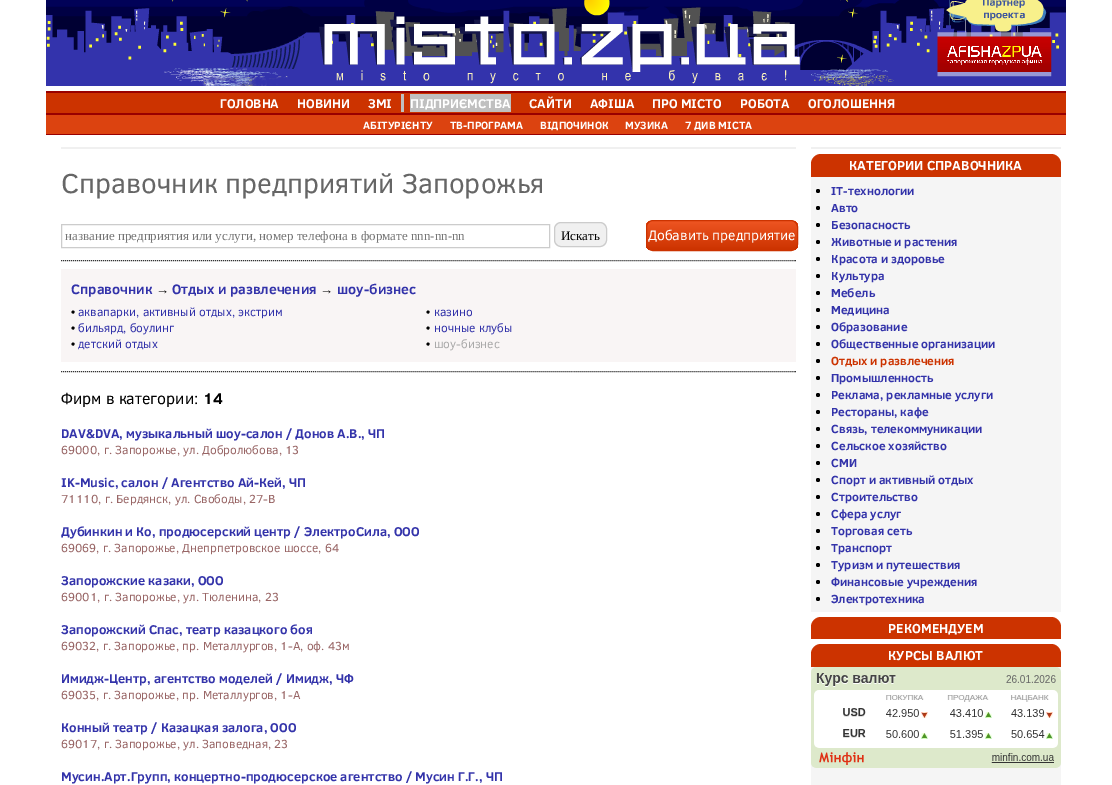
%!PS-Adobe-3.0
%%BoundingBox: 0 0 1112 785
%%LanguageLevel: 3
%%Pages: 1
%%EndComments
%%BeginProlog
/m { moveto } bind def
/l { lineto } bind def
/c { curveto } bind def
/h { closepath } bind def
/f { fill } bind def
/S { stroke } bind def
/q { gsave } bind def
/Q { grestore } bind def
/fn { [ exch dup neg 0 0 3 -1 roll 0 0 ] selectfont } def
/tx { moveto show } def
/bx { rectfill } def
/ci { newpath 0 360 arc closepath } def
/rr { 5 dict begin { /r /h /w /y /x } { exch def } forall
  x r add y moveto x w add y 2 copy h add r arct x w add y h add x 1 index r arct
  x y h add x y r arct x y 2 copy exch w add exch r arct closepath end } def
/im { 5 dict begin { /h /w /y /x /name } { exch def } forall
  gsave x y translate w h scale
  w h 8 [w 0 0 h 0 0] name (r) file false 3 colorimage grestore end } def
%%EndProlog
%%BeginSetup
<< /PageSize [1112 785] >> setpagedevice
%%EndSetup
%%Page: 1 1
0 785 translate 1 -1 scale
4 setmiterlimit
1 setgray
0 0 1112 785 bx
(image0.raw) 46 0 1020 86 im
0.8 0.2 0 setrgbcolor
46 93 1020 20 bx
0.6 0 0 setrgbcolor
46 91 1020 2 bx
46 113 1020 2 bx
/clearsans-Bold 13 fn
1 setgray
(ГОЛОВНА) 220 108 tx
(НОВИНИ) 297 108 tx
(ЗМІ) 368 108 tx
0.753 setgray
410 94 101 18 bx
1 setgray
(ПІДПРИЄМСТВА) 410 108 tx
0.753 setgray
401 94 3 18 bx
1 setgray
(САЙТИ) 529 108 tx
(АФІША) 590 108 tx
(ПРО МІСТО) 652 108 tx
(РОБОТА) 740 108 tx
(ОГОЛОШЕННЯ) 808 108 tx
0.863 0.263 0.063 setrgbcolor
46 115 1020 19 bx
0.6 0 0 setrgbcolor
46 134 1020 1 bx
/clearsans-Bold 10.75 fn
1 setgray
(АБІТУРІЄНТУ) 363 129 tx
(ТВ-ПРОГРАМА) 450 129 tx
(ВІДПОЧИНОК) 540 129 tx
(МУЗИКА) 625 129 tx
(7 ДИВ МІСТА) 685 129 tx
0.941 setgray
61 147 735 2 bx
/clearsans-Regular 28 fn
0.4 setgray
(Справочник предприятий Запорожья) 61 193 tx
0.8 setgray
61.5 224.5 488 23 rectstroke
/LiberationSerif-Regular 13 fn
0.459 setgray
(название предприятия или услуги, номер телефона в формате nnn-nn-nn) 65 240 tx
0.941 setgray
554.5 222.5 52 24 6.5 rr q f Q
0.8 setgray
S
0 setgray
(Искать) 561 240 tx
q
646 220 152 31 7 rr clip newpath
q 646 221 m 798 221 l 798 250 l 646 250 l h clip newpath
<< /ShadingType 2 /ColorSpace /DeviceRGB /Coords [722 250 722 221] /Extend [true true] /Function << /FunctionType 2 /Domain [0 1] /C0 [0.8 0.2 0] /C1 [0.933 0.333 0.133] /N 1 >> >> shfill Q
Q
0.8 0.2 0 setrgbcolor
646.5 220.5 151 30 6.5 rr S
/clearsans-Regular 14 fn
1 setgray
(Добавить предприятие) 648 240 tx
0.2 setgray
[1 1] 0 setdash
61 260.5 m 796 260.5 l S
0.976 0.961 0.961 setrgbcolor
61 269 735 93 bx
/clearsans-Bold 14 fn
0.2 0.2 0.667 setrgbcolor
(Справочник) 71 294 tx
/LiberationSans-Bold 13.3 fn
0 setgray
(→) 156 294 tx
/clearsans-Bold 14 fn
0.2 0.2 0.667 setrgbcolor
(Отдых и развлечения) 172 294 tx
/LiberationSans-Bold 13.3 fn
0 setgray
(→) 320 294 tx
/clearsans-Bold 14 fn
0.2 0.2 0.667 setrgbcolor
(шоу-бизнес) 337 294 tx
/LiberationSans-Regular 12 fn
0 setgray
(•) 71 316 tx
/clearsans-Regular 12 fn
0.2 0.2 0.667 setrgbcolor
(аквапарки, активный отдых, экстрим) 78 316 tx
/LiberationSans-Regular 12 fn
0 setgray
(•) 71 332 tx
/clearsans-Regular 12 fn
0.2 0.2 0.667 setrgbcolor
(бильярд, боулинг) 78 332 tx
/LiberationSans-Regular 12 fn
0 setgray
(•) 71 348 tx
/clearsans-Regular 12 fn
0.2 0.2 0.667 setrgbcolor
(детский отдых) 78 348 tx
/LiberationSans-Regular 12 fn
0 setgray
(•) 426 316 tx
/clearsans-Regular 12 fn
0.2 0.2 0.667 setrgbcolor
(казино) 434 316 tx
/LiberationSans-Regular 12 fn
0 setgray
(•) 426 332 tx
/clearsans-Regular 12 fn
0.2 0.2 0.667 setrgbcolor
(ночные клубы) 434 332 tx
/LiberationSans-Regular 12 fn
0 setgray
(•) 426 348 tx
/clearsans-Regular 12 fn
0.667 setgray
(шоу-бизнес) 434 348 tx
0.2 setgray
61 371.5 m 796 371.5 l S
/clearsans-Regular 16 fn
0 setgray
(Фирм в категории:) 61 404 tx
/clearsans-Bold 16 fn
(14) 203 404 tx
/clearsans-Bold 13 fn
0.2 0.2 0.667 setrgbcolor
(DAV&DVA, музыкальный шоу-салон / Донов А.В., ЧП) 61 438 tx
/clearsans-Regular 12 fn
0.6 0.4 0.4 setrgbcolor
(69000, г. Запорожье, ул. Добролюбова, 13) 61 454 tx
/clearsans-Bold 13 fn
0.2 0.2 0.667 setrgbcolor
(IK-Music, салон / Агентство Ай-Кей, ЧП) 61 487 tx
/clearsans-Regular 12 fn
0.6 0.4 0.4 setrgbcolor
(71110, г. Бердянск, ул. Свободы, 27-В) 61 503 tx
/clearsans-Bold 13 fn
0.2 0.2 0.667 setrgbcolor
(Дубинкин и Ко, продюсерский центр / ЭлектроСила, ООО) 61 536 tx
/clearsans-Regular 12 fn
0.6 0.4 0.4 setrgbcolor
(69069, г. Запорожье, Днепрпетровское шоссе, 64) 61 552 tx
/clearsans-Bold 13 fn
0.2 0.2 0.667 setrgbcolor
(Запорожские казаки, ООО) 61 585 tx
/clearsans-Regular 12 fn
0.6 0.4 0.4 setrgbcolor
(69001, г. Запорожье, ул. Тюленина, 23) 61 601 tx
/clearsans-Bold 13 fn
0.2 0.2 0.667 setrgbcolor
(Запорожский Спас, театр казацкого боя) 61 634 tx
/clearsans-Regular 12 fn
0.6 0.4 0.4 setrgbcolor
(69032, г. Запорожье, пр. Металлургов, 1-А, оф. 43м) 61 650 tx
/clearsans-Bold 13 fn
0.2 0.2 0.667 setrgbcolor
(Имидж-Центр, агентство моделей / Имидж, ЧФ) 61 683 tx
/clearsans-Regular 12 fn
0.6 0.4 0.4 setrgbcolor
(69035, г. Запорожье, пр. Металлургов, 1-А) 61 699 tx
/clearsans-Bold 13 fn
0.2 0.2 0.667 setrgbcolor
(Конный театр / Казацкая залога, ООО) 61 732 tx
/clearsans-Regular 12 fn
0.6 0.4 0.4 setrgbcolor
(69017, г. Запорожье, ул. Заповедная, 23) 61 748 tx
/clearsans-Bold 13 fn
0.2 0.2 0.667 setrgbcolor
(Мусин.Арт.Групп, концертно-продюсерское агентство / Мусин Г.Г., ЧП) 61 781 tx
0.941 setgray
811 147 250 2 bx
0.8 0.2 0 setrgbcolor
821 154 m 1051 154 l 1056.5 154 1061 158.5 1061 164 c 1061 177 l 811 177 l 811 164 l 811 158.5 815.5 154 821 154 c h f
/clearsans-Bold 13.3 fn
1 setgray
(КАТЕГОРИИ СПРАВОЧНИКА) 849 170 tx
0.961 setgray
811 177 250 435 bx
0 setgray
818 191 2 ci f
/clearsans-Bold 12 fn
0.2 0.2 0.667 setrgbcolor
(IT-технологии) 831 195 tx
0 setgray
818 208 2 ci f
0.2 0.2 0.667 setrgbcolor
(Авто) 831 212 tx
0 setgray
818 225 2 ci f
0.2 0.2 0.667 setrgbcolor
(Безопасность) 831 229 tx
0 setgray
818 242 2 ci f
0.2 0.2 0.667 setrgbcolor
(Животные и растения) 831 246 tx
0 setgray
818 259 2 ci f
0.2 0.2 0.667 setrgbcolor
(Красота и здоровье) 831 263 tx
0 setgray
818 276 2 ci f
0.2 0.2 0.667 setrgbcolor
(Культура) 831 280 tx
0 setgray
818 293 2 ci f
0.2 0.2 0.667 setrgbcolor
(Мебель) 831 297 tx
0 setgray
818 310 2 ci f
0.2 0.2 0.667 setrgbcolor
(Медицина) 831 314 tx
0 setgray
818 327 2 ci f
0.2 0.2 0.667 setrgbcolor
(Образование) 831 331 tx
0 setgray
818 344 2 ci f
0.2 0.2 0.667 setrgbcolor
(Общественные организации) 831 348 tx
0 setgray
818 361 2 ci f
0.8 0.2 0 setrgbcolor
(Отдых и развлечения) 831 365 tx
0 setgray
818 378 2 ci f
0.2 0.2 0.667 setrgbcolor
(Промышленность) 831 382 tx
0 setgray
818 395 2 ci f
0.2 0.2 0.667 setrgbcolor
(Реклама, рекламные услуги) 831 399 tx
0 setgray
818 412 2 ci f
0.2 0.2 0.667 setrgbcolor
(Рестораны, кафе) 831 416 tx
0 setgray
818 429 2 ci f
0.2 0.2 0.667 setrgbcolor
(Связь, телекоммуникации) 831 433 tx
0 setgray
818 446 2 ci f
0.2 0.2 0.667 setrgbcolor
(Сельское хозяйство) 831 450 tx
0 setgray
818 463 2 ci f
0.2 0.2 0.667 setrgbcolor
(СМИ) 831 467 tx
0 setgray
818 480 2 ci f
0.2 0.2 0.667 setrgbcolor
(Спорт и активный отдых) 831 484 tx
0 setgray
818 497 2 ci f
0.2 0.2 0.667 setrgbcolor
(Строительство) 831 501 tx
0 setgray
818 514 2 ci f
0.2 0.2 0.667 setrgbcolor
(Сфера услуг) 831 518 tx
0 setgray
818 531 2 ci f
0.2 0.2 0.667 setrgbcolor
(Торговая сеть) 831 535 tx
0 setgray
818 548 2 ci f
0.2 0.2 0.667 setrgbcolor
(Транспорт) 831 552 tx
0 setgray
818 565 2 ci f
0.2 0.2 0.667 setrgbcolor
(Туризм и путешествия) 831 569 tx
0 setgray
818 582 2 ci f
0.2 0.2 0.667 setrgbcolor
(Финансовые учреждения) 831 586 tx
0 setgray
818 599 2 ci f
0.2 0.2 0.667 setrgbcolor
(Электротехника) 831 603 tx
0.8 0.2 0 setrgbcolor
821 617 m 1051 617 l 1056.5 617 1061 621.5 1061 627 c 1061 639 l 811 639 l 811 627 l 811 621.5 815.5 617 821 617 c h f
/clearsans-Bold 13.3 fn
1 setgray
(РЕКОМЕНДУЕМ) 888 633 tx
0.8 0.2 0 setrgbcolor
821 644 m 1051 644 l 1056.5 644 1061 648.5 1061 654 c 1061 667 l 811 667 l 811 654 l 811 648.5 815.5 644 821 644 c h f
1 setgray
(КУРСЫ ВАЛЮТ) 888 660 tx
0.961 setgray
811 667 250 118 bx
(image1.raw) 811 667 250 101 im
showpage
%%EOF
